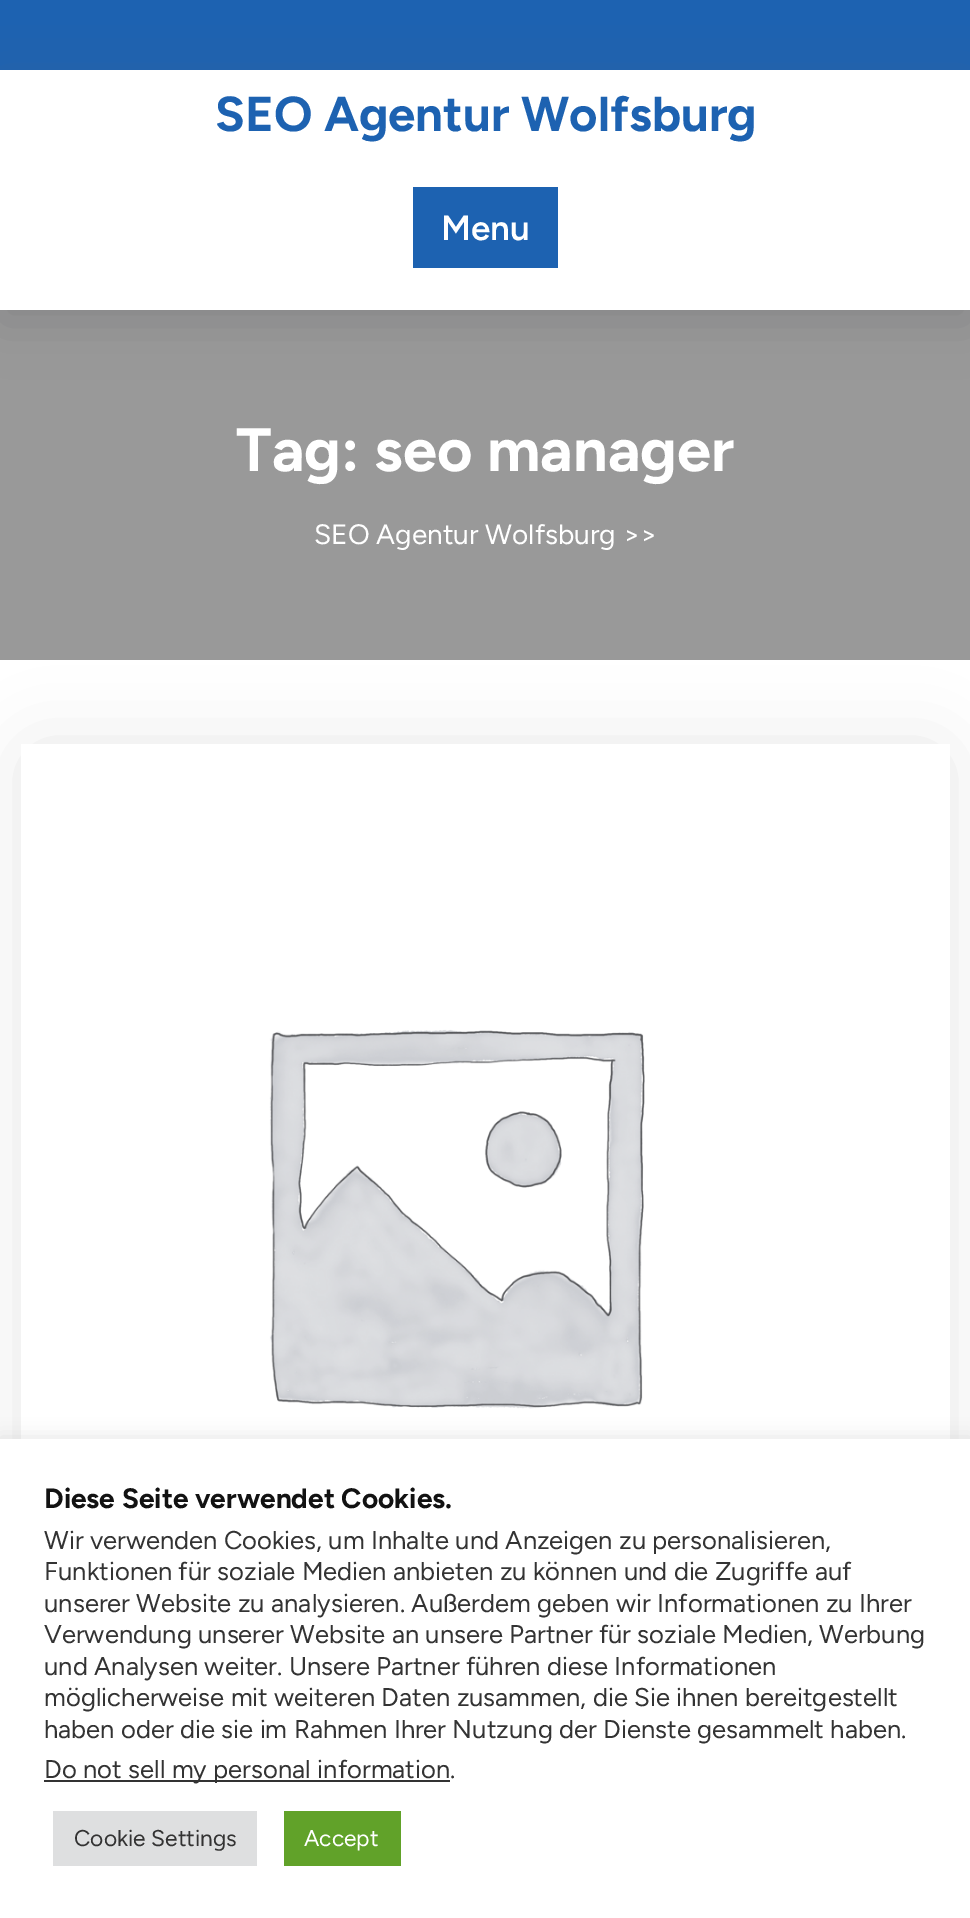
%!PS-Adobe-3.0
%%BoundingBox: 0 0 970 1918
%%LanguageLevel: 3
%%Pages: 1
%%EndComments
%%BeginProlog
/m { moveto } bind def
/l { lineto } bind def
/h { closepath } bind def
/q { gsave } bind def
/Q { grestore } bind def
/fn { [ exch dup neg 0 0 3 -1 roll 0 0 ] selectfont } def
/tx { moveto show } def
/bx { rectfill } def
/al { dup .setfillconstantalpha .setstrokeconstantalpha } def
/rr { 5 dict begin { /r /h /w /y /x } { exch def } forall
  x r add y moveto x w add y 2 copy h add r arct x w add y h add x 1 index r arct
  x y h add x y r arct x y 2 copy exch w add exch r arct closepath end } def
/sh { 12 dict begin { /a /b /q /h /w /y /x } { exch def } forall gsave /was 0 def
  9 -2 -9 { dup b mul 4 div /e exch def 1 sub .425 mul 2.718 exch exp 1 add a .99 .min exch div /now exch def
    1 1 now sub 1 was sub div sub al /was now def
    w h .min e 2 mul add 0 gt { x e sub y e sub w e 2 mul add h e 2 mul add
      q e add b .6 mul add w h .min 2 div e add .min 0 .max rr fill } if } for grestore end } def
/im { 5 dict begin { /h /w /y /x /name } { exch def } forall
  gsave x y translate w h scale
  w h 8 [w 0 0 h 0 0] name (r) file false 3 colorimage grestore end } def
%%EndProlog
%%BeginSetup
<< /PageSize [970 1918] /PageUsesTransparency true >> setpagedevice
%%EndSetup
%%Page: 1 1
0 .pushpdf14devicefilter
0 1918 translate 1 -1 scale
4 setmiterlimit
1 setgray
0 0 970 1918 bx
0.114 0.384 0.694 setrgbcolor
0 0 970 70 bx
q
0 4 m 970 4 l 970 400 l 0 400 l h 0 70 m 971 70 l 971 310 l 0 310 l h eoclip newpath
0.392 0.392 0.435 setrgbcolor
0 82 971 240 0 25.5 0.2 sh
Q
/Figtree-Bold 49 fn
(SEO Agentur Wolfsburg) 215 131 tx
413 187 145 81 bx
/Figtree-SemiBold 35 fn
1 setgray
(Menu) 441 240 tx
0 setgray
21 744 929 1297 18 35 0.09 sh
0.4 al
0 310 970 350 bx
/Figtree-Bold 61.25 fn
1 al
1 setgray
(Tag: seo manager) 236 471 tx
/Figtree-Regular 28 fn
(SEO Agentur Wolfsburg) 314 544 tx
(>>) 623 544 tx
(image0.raw) 21 744 929 695 im
0.675 0.671 0.671 setrgbcolor
0 1437 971 479 0 9 0.3 sh
1 setgray
0 1439 970 479 bx
/Figtree-Bold 28 fn
0.071 setgray
(Diese Seite verwendet Cookies.) 44 1508 tx
/Figtree-Regular 25.65 fn
0.2 setgray
(Wir verwenden Cookies, um Inhalte und Anzeigen zu personalisieren,) 44 1549 tx
(Funktionen für soziale Medien anbieten zu können und die Zugriffe auf) 44 1580 tx
(unserer Website zu analysieren. Außerdem geben wir Informationen zu Ihrer) 44 1612 tx
(Verwendung unserer Website an unsere Partner für soziale Medien, Werbung) 44 1643 tx
(und Analysen weiter. Unsere Partner führen diese Informationen) 44 1675 tx
(möglicherweise mit weiteren Daten zusammen, die Sie ihnen bereitgestellt) 44 1706 tx
(haben oder die sie im Rahmen Ihrer Nutzung der Dienste gesammelt haben.) 44 1738 tx
44 1780 406 2 bx
(Do not sell my personal information.) 44 1778 tx
0.871 0.875 0.878 setrgbcolor
53 1811 204 55 bx
/Figtree-Regular 22.75 fn
0.2 setgray
(Cookie Settings) 74 1846 tx
0.38 0.635 0.161 setrgbcolor
284 1811 117 55 bx
1 setgray
(Accept) 304 1846 tx
.poppdf14devicefilter showpage
%%EOF
